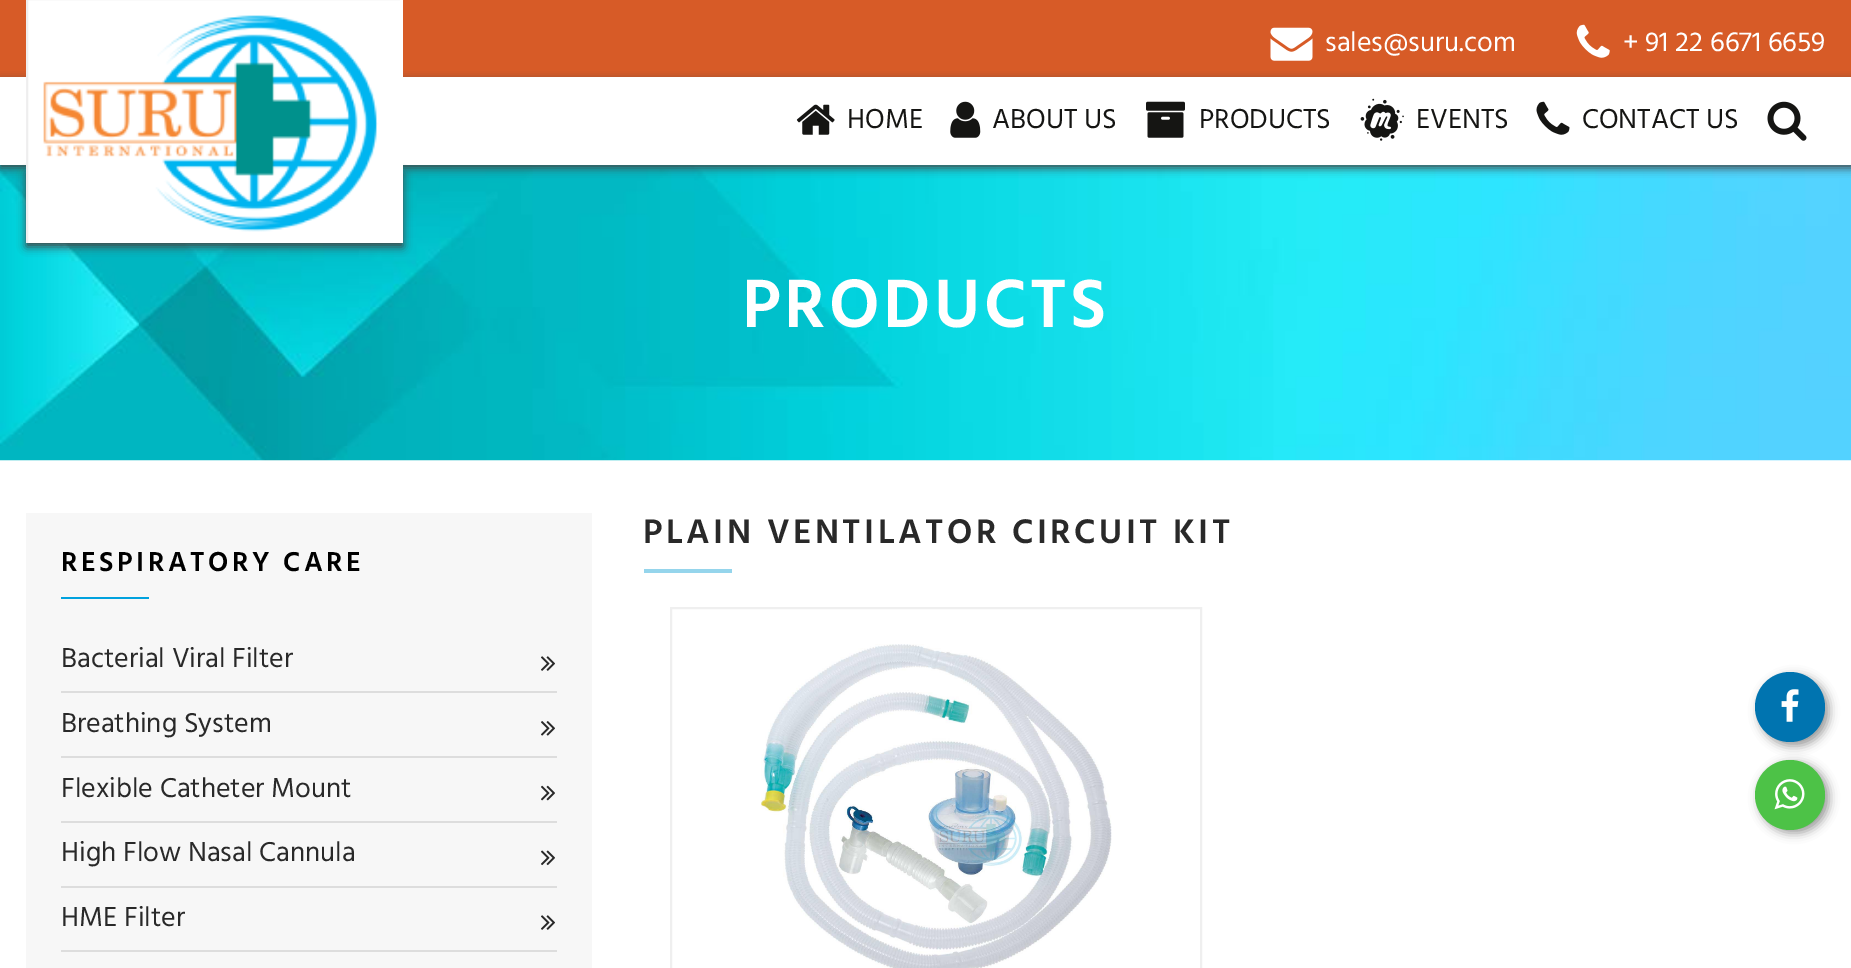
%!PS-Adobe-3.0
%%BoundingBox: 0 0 1851 968
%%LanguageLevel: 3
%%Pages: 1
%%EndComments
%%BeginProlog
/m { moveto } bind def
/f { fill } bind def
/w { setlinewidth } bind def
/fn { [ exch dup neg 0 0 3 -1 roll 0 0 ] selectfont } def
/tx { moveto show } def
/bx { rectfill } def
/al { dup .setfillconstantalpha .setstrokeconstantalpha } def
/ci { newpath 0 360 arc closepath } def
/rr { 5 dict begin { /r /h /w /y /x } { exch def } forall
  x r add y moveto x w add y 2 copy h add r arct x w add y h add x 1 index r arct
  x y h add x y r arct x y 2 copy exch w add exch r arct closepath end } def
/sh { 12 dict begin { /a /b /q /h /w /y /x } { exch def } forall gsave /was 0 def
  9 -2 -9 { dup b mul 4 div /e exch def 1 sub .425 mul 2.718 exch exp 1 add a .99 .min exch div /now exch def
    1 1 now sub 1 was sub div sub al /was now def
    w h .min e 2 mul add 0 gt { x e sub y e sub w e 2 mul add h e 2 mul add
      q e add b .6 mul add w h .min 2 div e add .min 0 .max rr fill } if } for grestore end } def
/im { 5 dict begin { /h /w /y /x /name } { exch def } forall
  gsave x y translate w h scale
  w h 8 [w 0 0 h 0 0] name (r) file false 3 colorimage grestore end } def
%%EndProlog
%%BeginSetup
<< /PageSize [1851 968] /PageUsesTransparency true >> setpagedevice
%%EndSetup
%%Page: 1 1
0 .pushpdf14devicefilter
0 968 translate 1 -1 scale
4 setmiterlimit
1 setgray
0 0 1851 968 bx
0.843 0.357 0.153 setrgbcolor
0 0 1851 77 bx
(image0.raw) 1270 27 43 34 im
/Hind-Regular 28 fn
1 setgray
(sales@suru.com) 1325 51 tx
(image1.raw) 1576 24 34 34 im
(+ 91 22 6671 6659) 1623 51 tx
(image9.raw) 0 165 1851 296 im
0.267 setgray
0 81 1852 87 0 4.5 1 sh
1 setgray
0 77 1851 88 bx
0.267 setgray
26 173 377 74 0 4.5 1 sh
1 setgray
26 0 377 243 bx
(image2.raw) 26 0 374 243 im
(image3.raw) 796 104 39 31 im
0.082 0.082 0.075 setrgbcolor
(HOME) 847 128 tx
(image4.raw) 950 101 31 37 im
(ABOUT US) 992 128 tx
(image5.raw) 1146 101 39 37 im
(PRODUCTS) 1199 128 tx
(image6.raw) 1360 98 44 43 im
(EVENTS) 1416 128 tx
(image7.raw) 1536 101 34 34 im
(CONTACT US) 1582 128 tx
(image8.raw) 1767 101 40 40 im
/Hind-SemiBold 70 fn
1 setgray
742 327 m 3.5 0 (PRODUCTS) ashow
/Hind-SemiBold 35 fn
0.161 setgray
643 543 m 3.5 0 (PLAIN VENTILATOR CIRCUIT KIT) ashow
0.584 0.835 0.925 setrgbcolor
644 569 88 4 bx
0.937 setgray
2 w
671 608 530 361 rectstroke
(image10.raw) 761 644 351 324 im
0.969 setgray
26 513 566 455 bx
/Hind-SemiBold 28 fn
0 setgray
61 571 m 3.5 0 (RESPIRATORY CARE) ashow
0 0.635 0.871 setrgbcolor
61 597 88 2 bx
0.867 setgray
61 691 496 2 bx
/Hind-Regular 28 fn
0.161 setgray
(Bacterial Viral Filter) 61 667 tx
(image11.raw) 541 656 14 15 im
0.867 setgray
61 756 496 2 bx
0.161 setgray
(Breathing System) 61 732 tx
(image12.raw) 541 721 14 15 im
0.867 setgray
61 821 496 2 bx
0.161 setgray
(Flexible Catheter Mount) 61 797 tx
(image13.raw) 541 785 14 16 im
0.867 setgray
61 886 496 2 bx
0.161 setgray
(High Flow Nasal Cannula) 61 861 tx
(image14.raw) 541 850 14 16 im
0.867 setgray
61 950 496 2 bx
0.161 setgray
(HME Filter) 61 926 tx
(image11.raw) 541 915 14 15 im
0 setgray
1759 676 70 70 35 5 0.4 sh
0 0.455 0.69 setrgbcolor
1790 707 35 ci f
(image15.raw) 1781 689 18 33 im
0 setgray
1759 763 70 70 35 5 0.4 sh
0.302 0.761 0.278 setrgbcolor
1790 795 35 ci f
(image16.raw) 1774 779 31 31 im
.poppdf14devicefilter showpage
%%EOF
